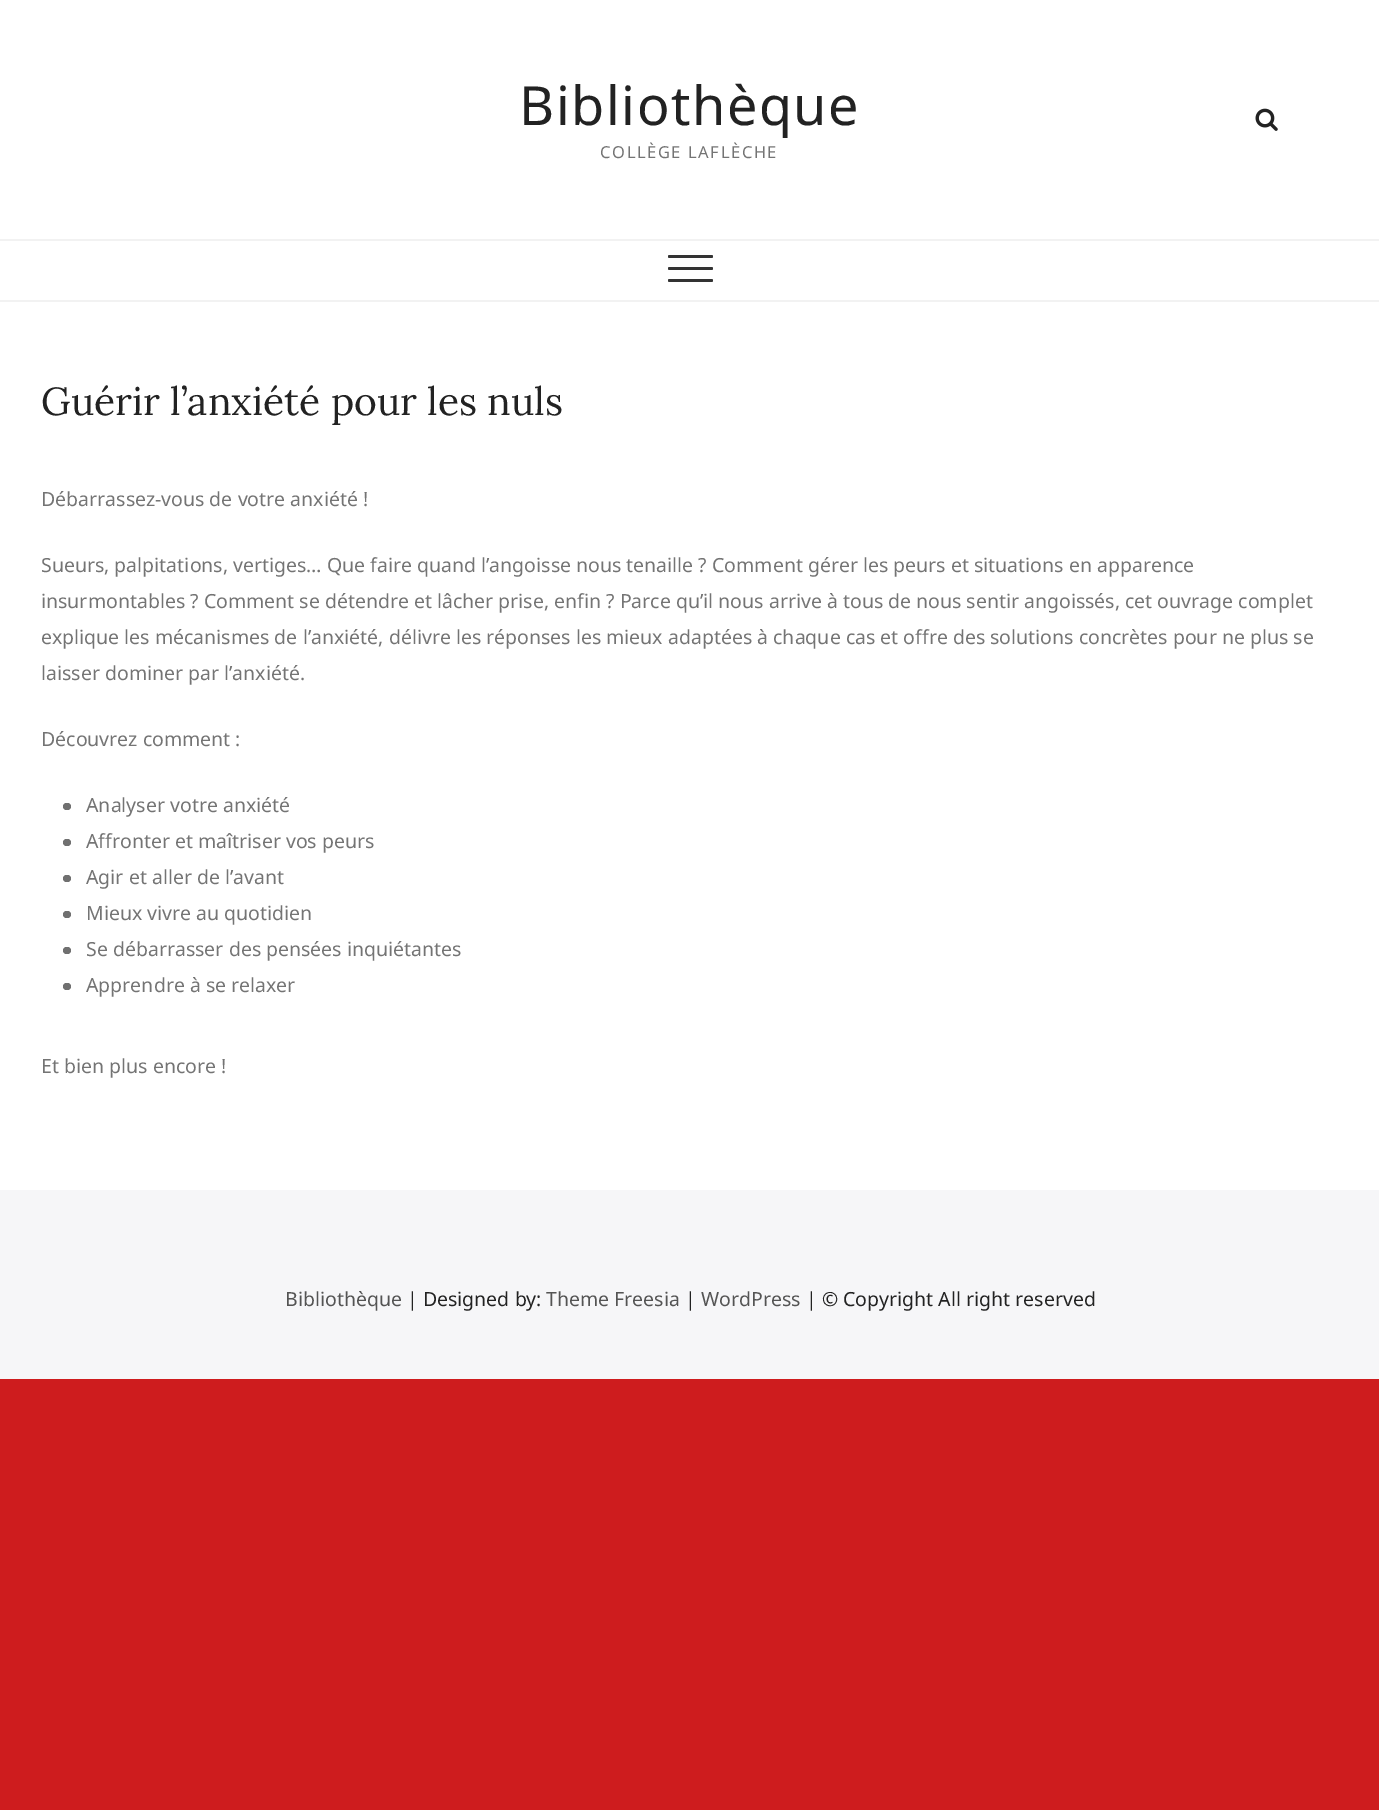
%!PS-Adobe-3.0
%%BoundingBox: 0 0 1379 1810
%%LanguageLevel: 3
%%Pages: 1
%%EndComments
%%BeginProlog
/m { moveto } bind def
/f { fill } bind def
/fn { [ exch dup neg 0 0 3 -1 roll 0 0 ] selectfont } def
/tx { moveto show } def
/bx { rectfill } def
/rr { 5 dict begin { /r /h /w /y /x } { exch def } forall
  x r add y moveto x w add y 2 copy h add r arct x w add y h add x 1 index r arct
  x y h add x y r arct x y 2 copy exch w add exch r arct closepath end } def
/im { 5 dict begin { /h /w /y /x /name } { exch def } forall
  gsave x y translate w h scale
  w h 8 [w 0 0 h 0 0] name (r) file false 3 colorimage grestore end } def
%%EndProlog
%%BeginSetup
<< /PageSize [1379 1810] >> setpagedevice
%%EndSetup
%%Page: 1 1
0 1810 translate 1 -1 scale
4 setmiterlimit
0.808 0.11 0.118 setrgbcolor
0 0 1379 1810 bx
1 setgray
0 0 1379 1190 bx
/NotoSans-Regular 54 fn
0.133 setgray
519 125 m 1.5 0 (Bibliothèque) ashow
/NotoSans-Regular 16.5 fn
0.455 setgray
600 158 m 1.6 0 (COLLÈGE LAFLÈCHE) ashow
(image0.raw) 1255 108 23 23 im
0.949 setgray
0 239 1379 2 bx
0 300 1379 2 bx
0.2 setgray
668 267 45 3 1.5 rr f
668 255 45 3 1.5 rr f
668 279 45 3 1.5 rr f
/Lora-Regular 39 fn
0.133 setgray
(Guérir l’anxiété pour les nuls) 41 415 tx
/NotoSans-Regular 19.5 fn
0.455 setgray
(Débarrassez-vous de votre anxiété !) 41 506 tx
(Sueurs, palpitations, vertiges… Que faire quand l’angoisse nous tenaille ? Comment gérer les peurs et situations en apparence) 41 572 tx
(insurmontables ? Comment se détendre et lâcher prise, enfin ? Parce qu’il nous arrive à tous de nous sentir angoissés, cet ouvrage complet) 41 608 tx
(explique les mécanismes de l’anxiété, délivre les réponses les mieux adaptées à chaque cas et offre des solutions concrètes pour ne plus se) 41 644 tx
(laisser dominer par l’anxiété.) 41 680 tx
(Découvrez comment :) 41 746 tx
0.439 setgray
63 803 8 7 3.5 rr f
0.455 setgray
(Analyser votre anxiété) 86 812 tx
0.439 setgray
63 839 8 7 3.5 rr f
0.455 setgray
(Affronter et maîtriser vos peurs) 86 848 tx
0.439 setgray
63 875 8 7 3.5 rr f
0.455 setgray
(Agir et aller de l’avant) 86 884 tx
0.439 setgray
63 911 8 7 3.5 rr f
0.455 setgray
(Mieux vivre au quotidien) 86 920 tx
0.439 setgray
63 947 8 7 3.5 rr f
0.455 setgray
(Se débarrasser des pensées inquiétantes) 86 956 tx
0.439 setgray
63 983 8 7 3.5 rr f
0.455 setgray
(Apprendre à se relaxer) 86 992 tx
(Et bien plus encore !) 41 1073 tx
0.965 0.965 0.973 setrgbcolor
0 1190 1379 189 bx
0.329 setgray
(Bibliothèque) 285 1306 tx
0.133 setgray
(| Designed by:) 407 1306 tx
0.329 setgray
(Theme Freesia) 546 1306 tx
0.133 setgray
(|) 685 1306 tx
0.329 setgray
(WordPress) 701 1306 tx
0.133 setgray
(| © Copyright All right reserved) 806 1306 tx
showpage
%%EOF
